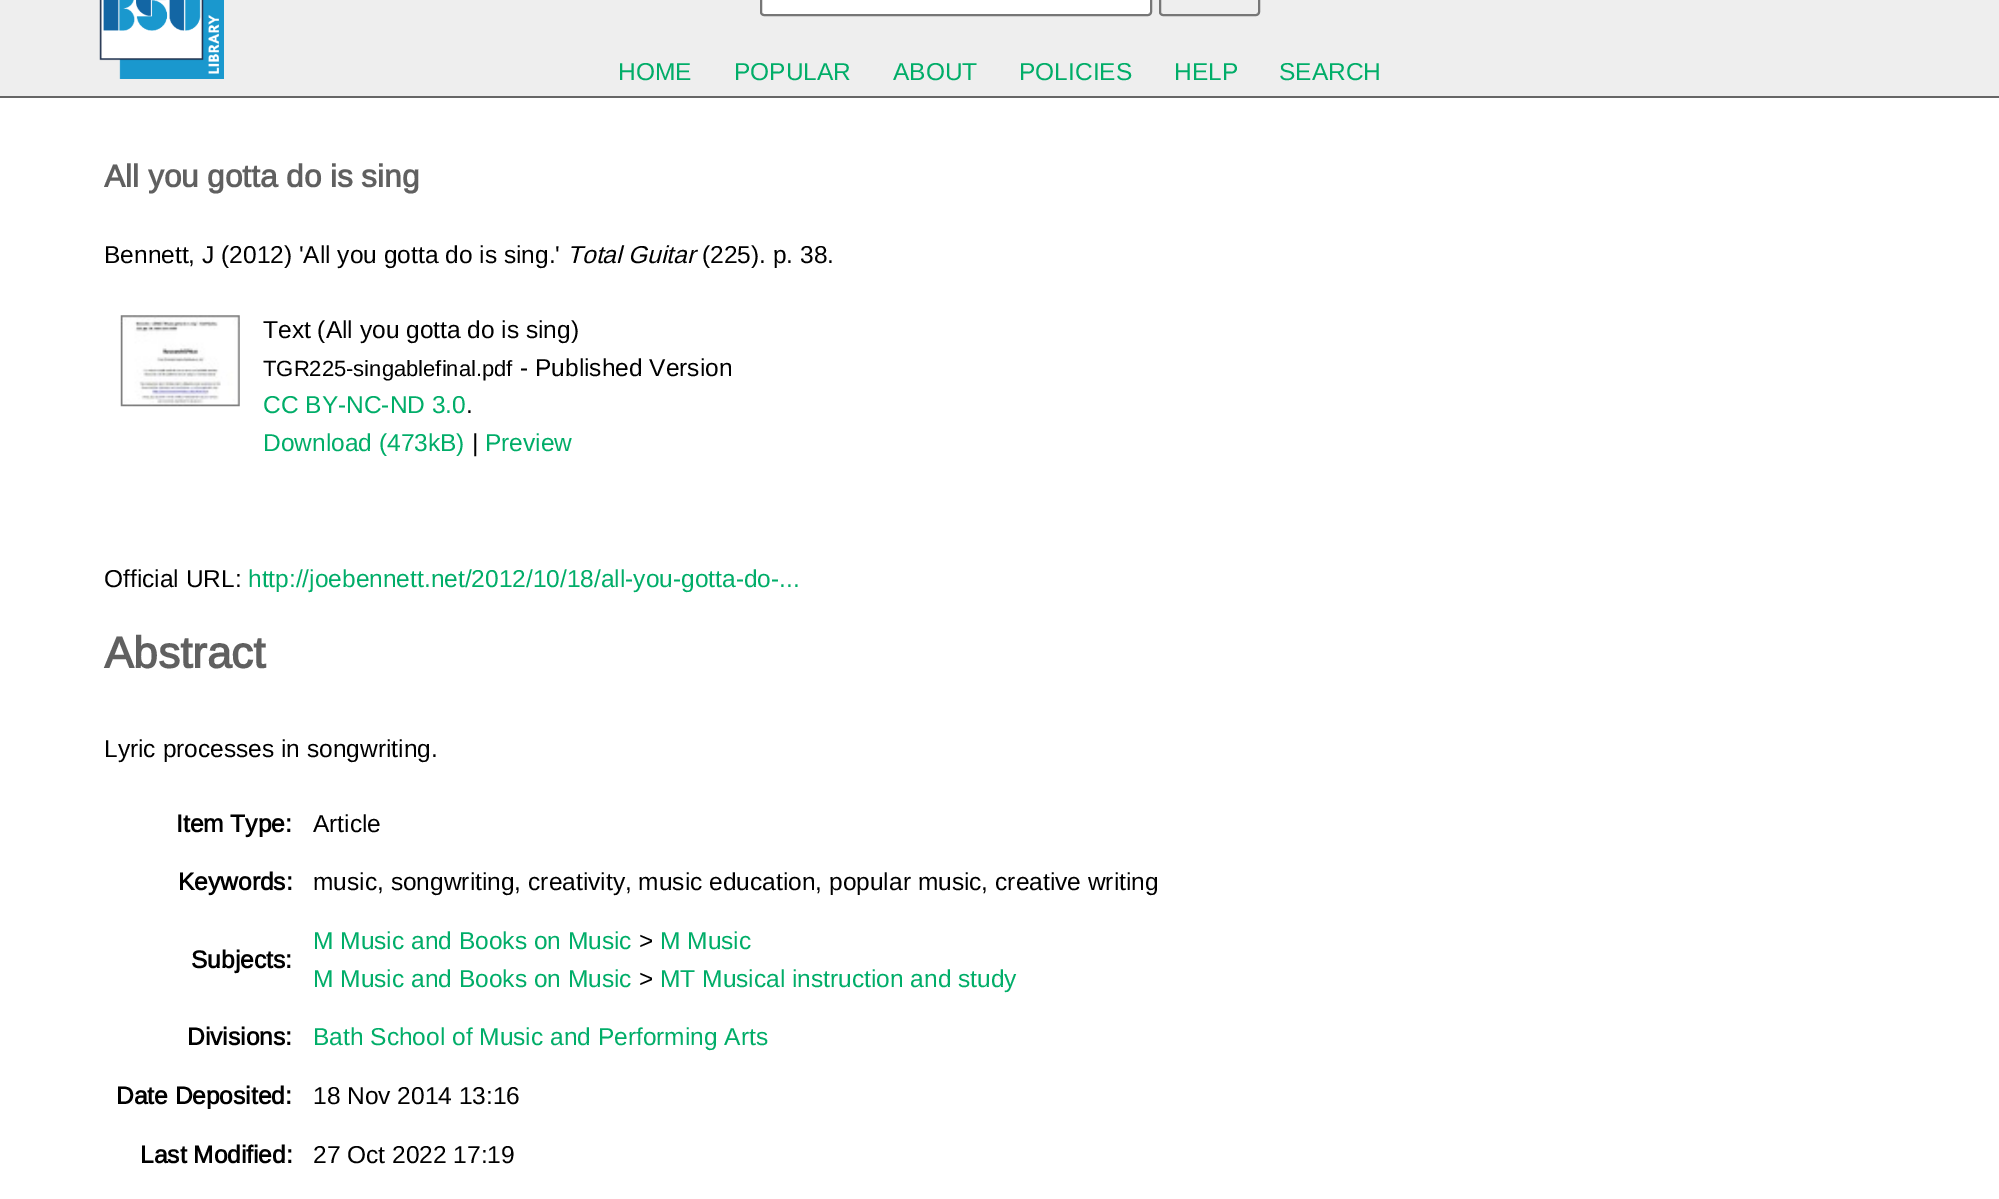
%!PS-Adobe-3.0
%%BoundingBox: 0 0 1999 1199
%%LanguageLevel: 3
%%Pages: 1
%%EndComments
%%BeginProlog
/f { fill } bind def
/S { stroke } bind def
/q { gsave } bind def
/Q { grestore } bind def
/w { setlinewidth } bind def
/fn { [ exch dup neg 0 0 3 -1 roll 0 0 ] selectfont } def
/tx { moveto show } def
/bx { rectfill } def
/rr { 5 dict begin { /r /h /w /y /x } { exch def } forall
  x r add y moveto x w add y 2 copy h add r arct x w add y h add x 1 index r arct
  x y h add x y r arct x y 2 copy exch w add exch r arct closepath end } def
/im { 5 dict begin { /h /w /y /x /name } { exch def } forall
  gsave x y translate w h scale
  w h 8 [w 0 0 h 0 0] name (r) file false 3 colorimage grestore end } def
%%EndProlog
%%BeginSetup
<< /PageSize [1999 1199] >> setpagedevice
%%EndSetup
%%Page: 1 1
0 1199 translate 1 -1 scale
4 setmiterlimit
1 setgray
0 0 1999 1199 bx
0.933 setgray
0 0 1999 96 bx
0.4 setgray
0 96 1999 2 bx
(image0.raw) 99 0 125 79 im
1 setgray
761 -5 390 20 3 rr q f Q
0.463 setgray
2 w
S
1160 -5 99 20 3 rr S
/LiberationSans-Regular 24.5 fn
0 0.678 0.408 setrgbcolor
(HOME) 618 80 tx
(POPULAR) 734 80 tx
(ABOUT) 893 80 tx
(POLICIES) 1019 80 tx
(HELP) 1174 80 tx
(SEARCH) 1279 80 tx
/LiberationSans-Bold 31.5 fn
0.376 setgray
(All you gotta do is sing) 104 187 tx
/LiberationSans-Regular 24.5 fn
0 setgray
(Bennett, J \(2012\) 'All you gotta do is sing.') 104 263 tx
/LiberationSans-Italic 24.5 fn
(Total Guitar) 567 263 tx
/LiberationSans-Regular 24.5 fn
(\(225\). p. 38.) 702 263 tx
(image1.raw) 120 315 120 92 im
(Text \(All you gotta do is sing\)) 263 338 tx
/LiberationSans-Regular 22 fn
(TGR225-singablefinal.pdf) 263 376 tx
/LiberationSans-Regular 24.5 fn
(- Published Version) 520 376 tx
0 0.678 0.408 setrgbcolor
(CC BY-NC-ND 3.0) 263 413 tx
0 setgray
(.) 466 413 tx
0 0.678 0.408 setrgbcolor
(Download \(473kB\)) 263 451 tx
0 setgray
(|) 472 451 tx
0 0.678 0.408 setrgbcolor
(Preview) 485 451 tx
0 setgray
(Official URL:) 104 587 tx
0 0.678 0.408 setrgbcolor
(http://joebennett.net/2012/10/18/all-you-gotta-do-...) 248 587 tx
/LiberationSans-Bold 44 fn
0.376 setgray
(Abstract) 104 668 tx
/LiberationSans-Regular 24.5 fn
0 setgray
(Lyric processes in songwriting.) 104 757 tx
/LiberationSans-Bold 24.5 fn
(Item Type:) 176 832 tx
/LiberationSans-Regular 24.5 fn
(Article) 313 832 tx
/LiberationSans-Bold 24.5 fn
(Keywords:) 178 890 tx
/LiberationSans-Regular 24.5 fn
(music, songwriting, creativity, music education, popular music, creative writing) 313 890 tx
/LiberationSans-Bold 24.5 fn
(Subjects:) 191 968 tx
/LiberationSans-Regular 24.5 fn
0 0.678 0.408 setrgbcolor
(M Music and Books on Music) 313 949 tx
0 setgray
(>) 639 949 tx
0 0.678 0.408 setrgbcolor
(M Music) 660 949 tx
(M Music and Books on Music) 313 987 tx
0 setgray
(>) 639 987 tx
0 0.678 0.408 setrgbcolor
(MT Musical instruction and study) 660 987 tx
/LiberationSans-Bold 24.5 fn
0 setgray
(Divisions:) 187 1045 tx
/LiberationSans-Regular 24.5 fn
0 0.678 0.408 setrgbcolor
(Bath School of Music and Performing Arts) 313 1045 tx
/LiberationSans-Bold 24.5 fn
0 setgray
(Date Deposited:) 116 1104 tx
/LiberationSans-Regular 24.5 fn
(18 Nov 2014 13:16) 313 1104 tx
/LiberationSans-Bold 24.5 fn
(Last Modified:) 140 1163 tx
/LiberationSans-Regular 24.5 fn
(27 Oct 2022 17:19) 313 1163 tx
showpage
%%EOF
